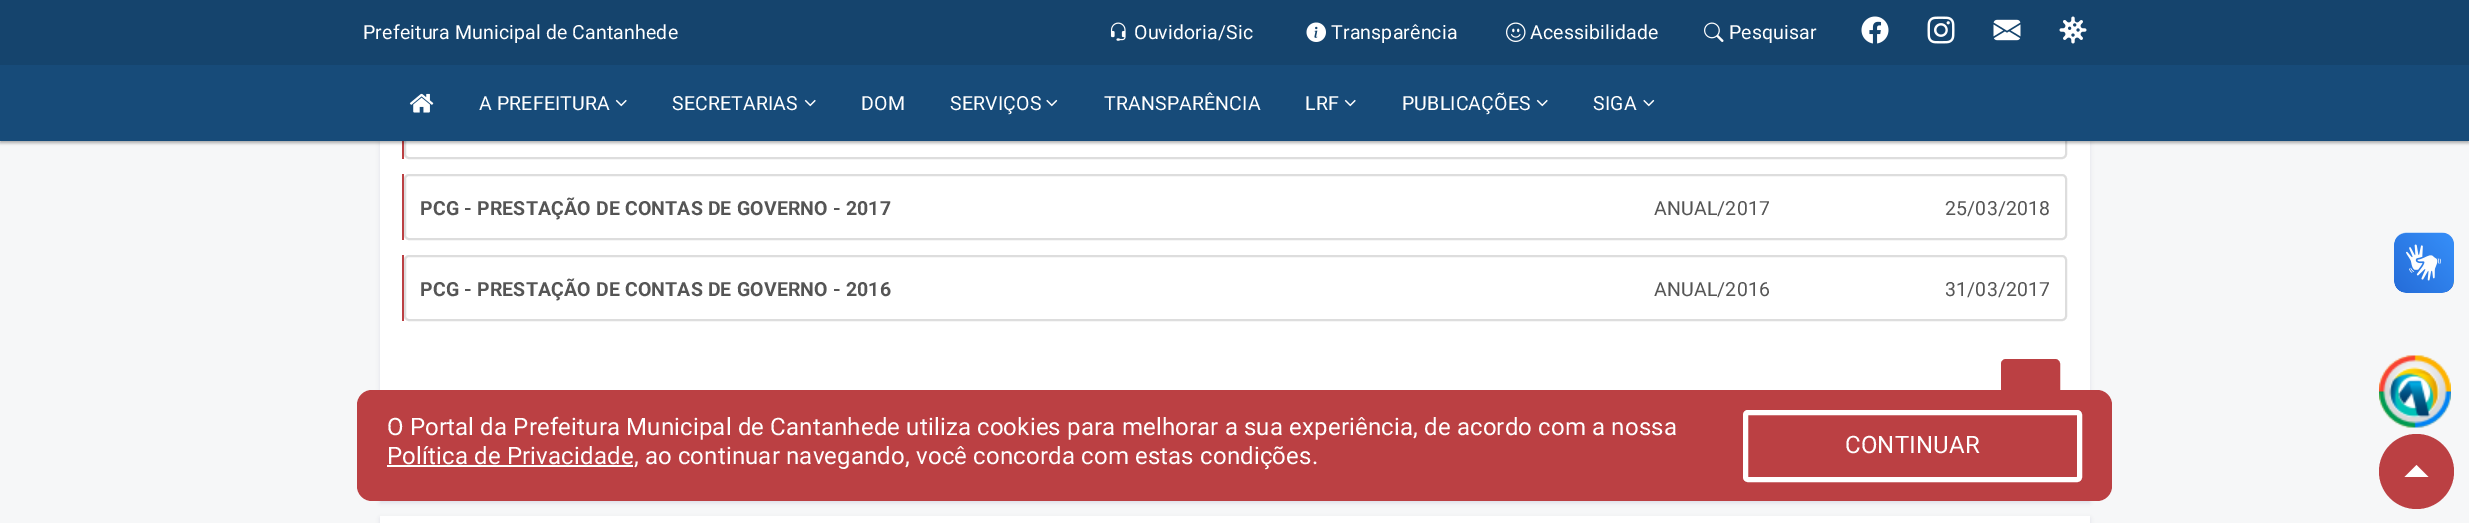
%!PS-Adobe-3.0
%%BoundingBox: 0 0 2469 523
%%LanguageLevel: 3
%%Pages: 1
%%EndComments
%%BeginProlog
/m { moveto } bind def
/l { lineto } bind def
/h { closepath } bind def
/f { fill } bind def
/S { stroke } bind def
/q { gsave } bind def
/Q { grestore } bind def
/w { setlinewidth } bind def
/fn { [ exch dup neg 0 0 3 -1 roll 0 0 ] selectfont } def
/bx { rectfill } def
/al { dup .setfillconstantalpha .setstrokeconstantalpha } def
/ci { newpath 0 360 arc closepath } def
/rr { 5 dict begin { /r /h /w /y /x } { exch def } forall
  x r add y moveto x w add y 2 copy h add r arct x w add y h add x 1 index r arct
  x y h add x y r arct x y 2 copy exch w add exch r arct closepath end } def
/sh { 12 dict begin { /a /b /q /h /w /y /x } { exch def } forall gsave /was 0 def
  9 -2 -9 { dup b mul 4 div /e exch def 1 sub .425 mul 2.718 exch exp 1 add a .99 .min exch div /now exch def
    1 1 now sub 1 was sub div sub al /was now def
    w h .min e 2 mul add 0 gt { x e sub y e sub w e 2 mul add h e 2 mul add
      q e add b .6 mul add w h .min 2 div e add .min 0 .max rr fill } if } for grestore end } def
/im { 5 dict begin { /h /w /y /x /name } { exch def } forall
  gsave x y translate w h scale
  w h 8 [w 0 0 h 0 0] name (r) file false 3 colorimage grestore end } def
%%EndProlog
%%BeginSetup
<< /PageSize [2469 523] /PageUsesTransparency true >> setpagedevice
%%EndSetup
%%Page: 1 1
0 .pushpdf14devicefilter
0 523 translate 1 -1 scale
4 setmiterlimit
0.965 0.969 0.973 setrgbcolor
0 0 2469 523 bx
0.012 0 0.278 setrgbcolor
380 -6 1710 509 0 2 0.09 sh
1 setgray
380 141 1710 249 bx
0.733 0.251 0.263 setrgbcolor
402 141 2 18 bx
0.867 setgray
2 w
405 94 1661 64 4 rr S
0 setgray
0 2 2469 141 0 1.5 0.3 sh
0.082 0.267 0.427 setrgbcolor
0 0 2469 65 bx
/Roboto-Regular 19.5 fn
1 setgray
363 39 m 0.15 0 (Prefeitura Municipal de Cantanhede) ashow
(image0.raw) 1110 22 16 19 im
1134 39 m 0.15 0 (Ouvidoria/Sic) ashow
(image1.raw) 1306 22 20 20 im
1331 39 m 0.15 0 (Transparência) ashow
(image2.raw) 1506 22 20 20 im
1530 39 m 0.15 0 (Acessibilidade) ashow
(image3.raw) 1704 22 20 20 im
1729 39 m 0.15 0 (Pesquisar) ashow
(image4.raw) 1861 16 28 28 im
(image5.raw) 1927 16 28 28 im
(image6.raw) 1993 19 28 22 im
(image7.raw) 2059 16 28 28 im
0.09 0.294 0.475 setrgbcolor
0 65 2469 76 bx
(image8.raw) 409 93 25 20 im
1 setgray
479 110 m 0.15 0 (A PREFEITURA) ashow
(image9.raw) 615 99 12 8 im
672 110 m 0.15 0 (SECRETARIAS) ashow
(image9.raw) 804 99 12 8 im
861 110 m 0.15 0 (DOM) ashow
950 110 m 0.15 0 (SERVIÇOS) ashow
(image10.raw) 1046 99 12 8 im
1104 110 m 0.15 0 (TRANSPARÊNCIA) ashow
1305 110 m 0.15 0 (LRF) ashow
(image9.raw) 1344 99 12 8 im
1402 110 m 0.15 0 (PUBLICAÇÕES) ashow
(image9.raw) 1536 99 12 8 im
1593 110 m 0.15 0 (SIGA) ashow
(image10.raw) 1643 99 12 8 im
0.733 0.251 0.263 setrgbcolor
402 174 2 66 bx
0.867 setgray
405 175 1661 64 4 rr S
/Roboto-Bold 19.5 fn
0.333 setgray
420 215 m 0.15 0 (PCG - PRESTAÇÃO DE CONTAS DE GOVERNO - 2017) ashow
/Roboto-Regular 19.5 fn
1654 215 m 0.15 0 (ANUAL/2017) ashow
1945 215 m 0.15 0 (25/03/2018) ashow
0.733 0.251 0.263 setrgbcolor
402 255 2 66 bx
0.867 setgray
405 256 1661 64 4 rr S
/Roboto-Bold 19.5 fn
0.333 setgray
420 296 m 0.15 0 (PCG - PRESTAÇÃO DE CONTAS DE GOVERNO - 2016) ashow
/Roboto-Regular 19.5 fn
1654 296 m 0.15 0 (ANUAL/2016) ashow
1945 296 m 0.15 0 (31/03/2017) ashow
0.733 0.251 0.263 setrgbcolor
2002 360 57 61 4 rr q f Q
S
(image11.raw) 2394 232 60 61 im
(image12.raw) 2394 233 60 60 im
(image13.raw) 2379 355 72 73 im
357 390 1755 111 15 rr f
/Roboto-Regular 24 fn
1 setgray
387 435 m 0.15 0 (O Portal da Prefeitura Municipal de Cantanhede utiliza cookies para melhorar a sua experiência, de acordo com a nossa) ashow
387 465 246 2 bx
387 464 m 0.15 0 (Política de Privacidade, ao continuar navegando, você concorda com estas condições.) ashow
5 w
1745.5 412.5 334 67 2.5 rr S
1845 453 m 0.15 0 (CONTINUAR) ashow
0.733 0.251 0.263 setrgbcolor
2416.5 471.5 37.5 ci f
1 setgray
2428.5 477 m 2404.5 477 l 2416.5 465 l h f
0.012 0 0.278 setrgbcolor
380 518 1710 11 0 2 0.09 sh
1 setgray
380 516 1710 7 bx
.poppdf14devicefilter showpage
%%EOF
